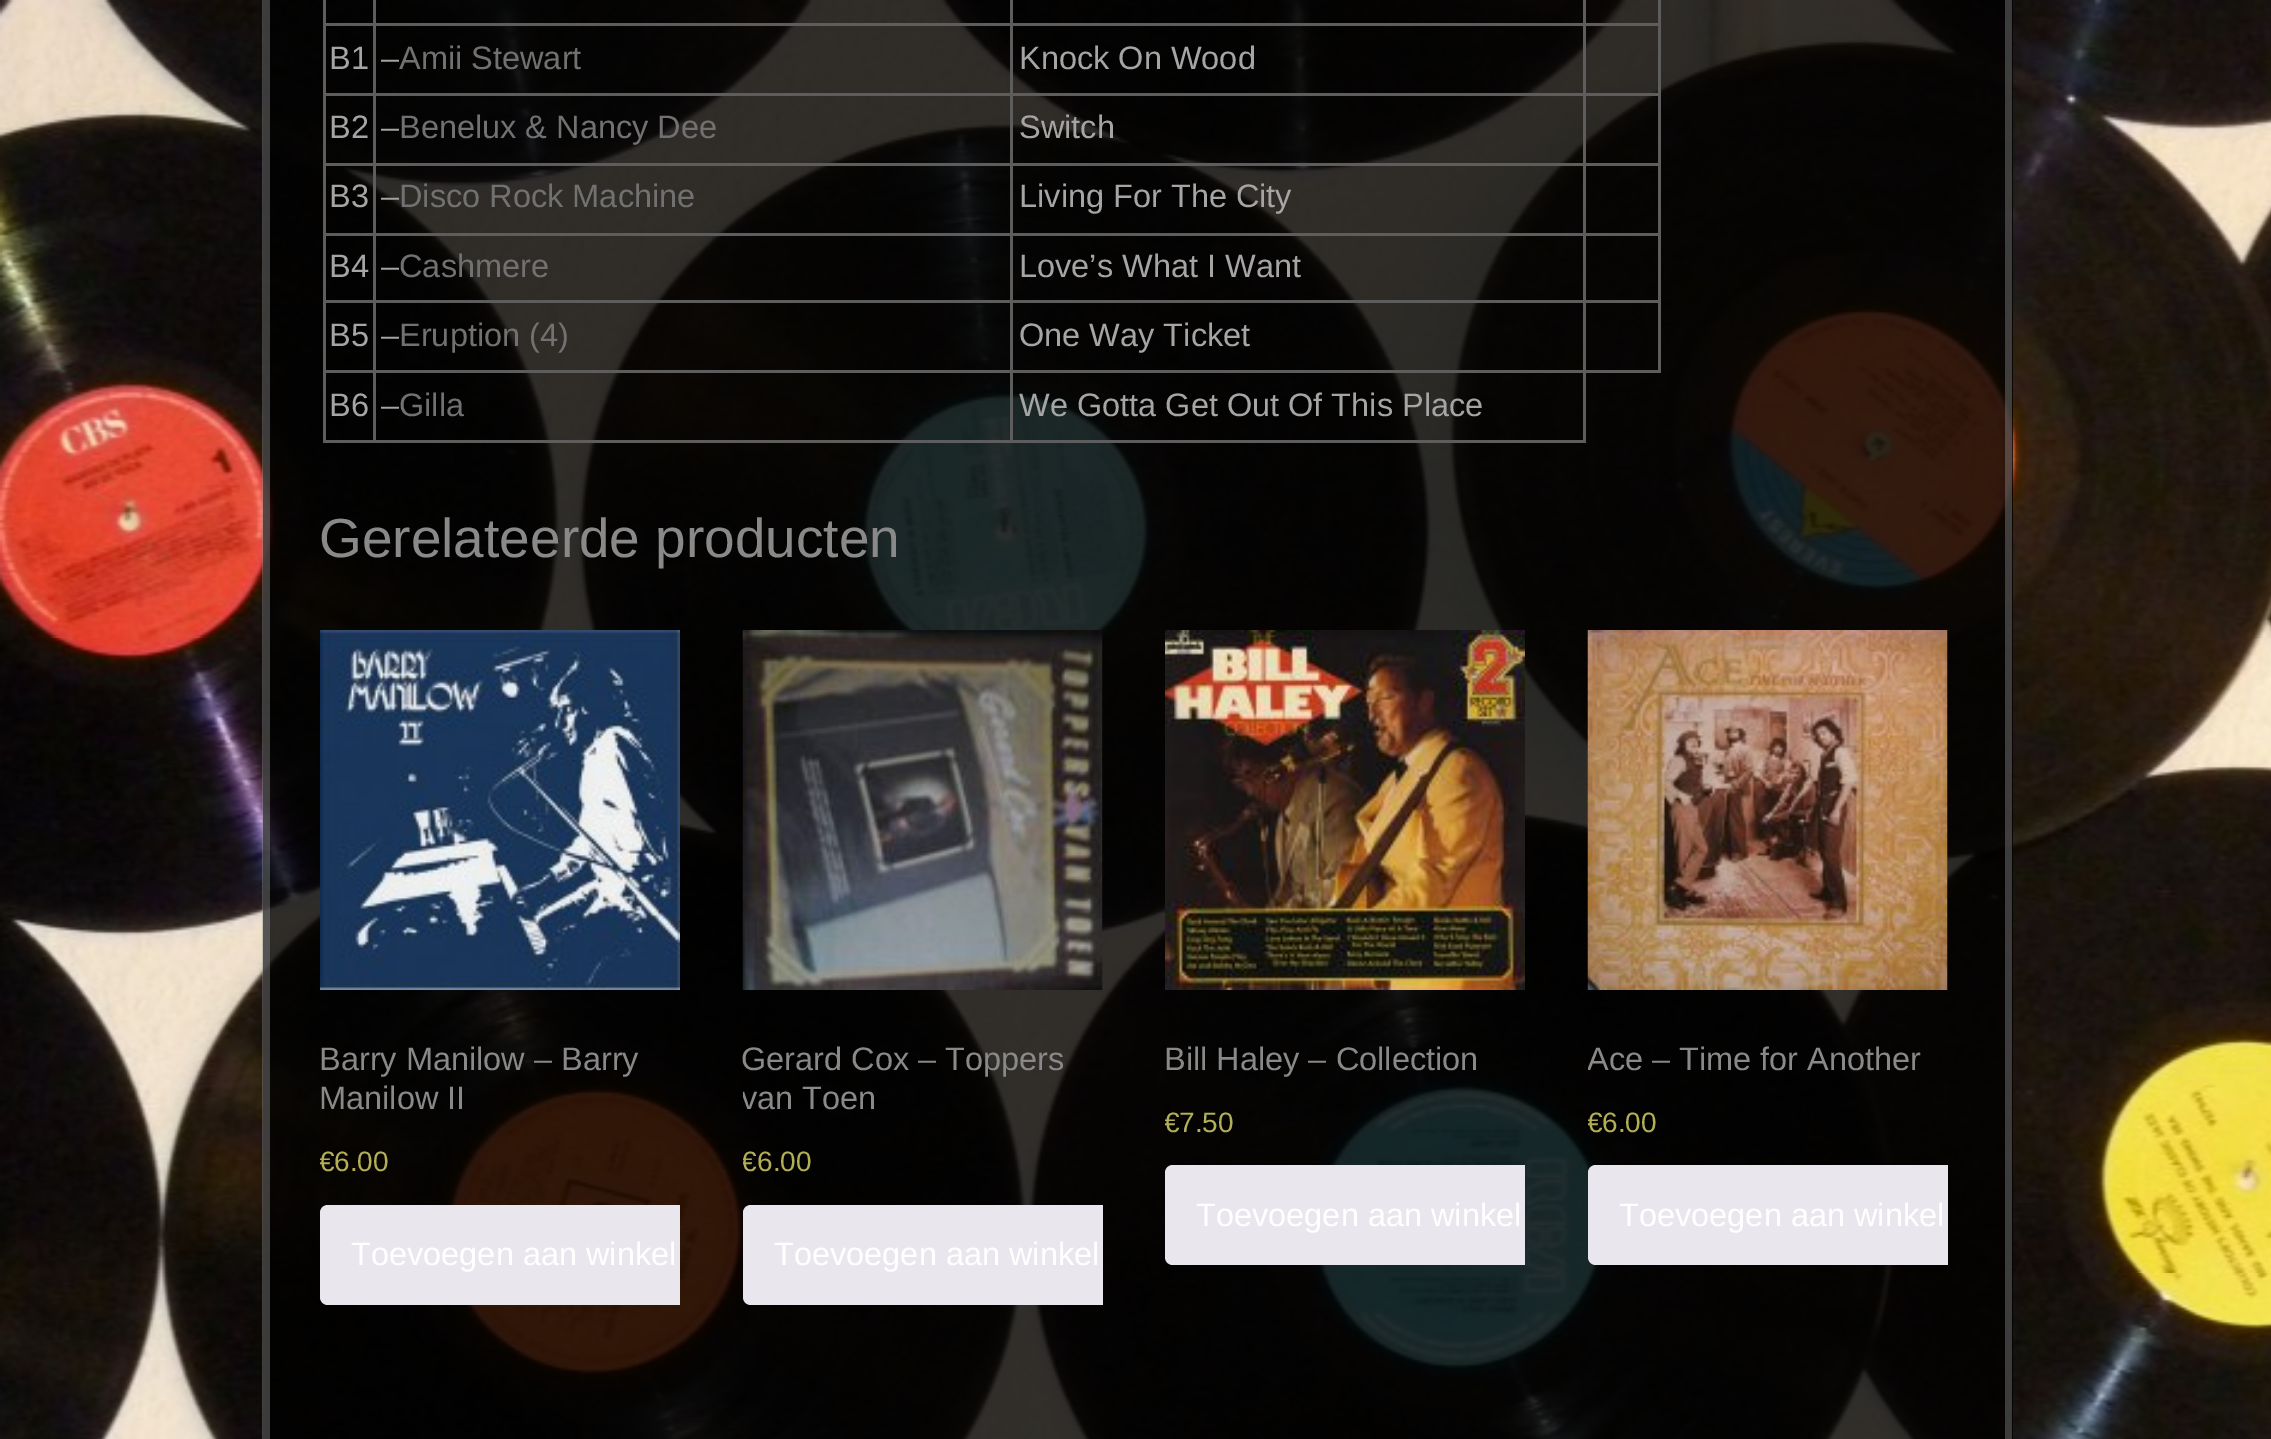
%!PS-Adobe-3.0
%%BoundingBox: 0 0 2271 1439
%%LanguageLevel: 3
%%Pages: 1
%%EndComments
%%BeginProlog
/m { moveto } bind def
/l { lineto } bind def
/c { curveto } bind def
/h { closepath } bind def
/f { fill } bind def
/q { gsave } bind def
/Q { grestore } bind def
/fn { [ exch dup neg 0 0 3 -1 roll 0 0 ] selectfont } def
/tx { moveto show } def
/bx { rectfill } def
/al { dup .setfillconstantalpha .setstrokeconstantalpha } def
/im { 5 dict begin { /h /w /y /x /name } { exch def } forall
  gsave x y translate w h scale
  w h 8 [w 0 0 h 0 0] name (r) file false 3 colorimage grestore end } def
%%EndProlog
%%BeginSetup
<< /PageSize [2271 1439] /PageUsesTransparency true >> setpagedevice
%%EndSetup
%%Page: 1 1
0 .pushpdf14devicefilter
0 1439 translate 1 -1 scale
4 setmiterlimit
1 setgray
0 0 2271 1439 bx
(image0.raw) 0 0 2271 1439 im
0.8 al
0 setgray
263 0 1750 1439 bx
0.4 al
0.569 setgray
2012 -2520 m 2012 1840 l 2005 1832 l 2005 -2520 l h f
262 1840 m 262 -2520 l 270 -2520 l 270 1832 l h f
1 al
0.365 setgray
1583 23 77 3 bx
1583 93 77 3 bx
1583 163 77 3 bx
1583 233 77 3 bx
1583 300 77 3 bx
1658 300 3 73 bx
1010 370 575 3 bx
1583 370 3 73 bx
1583 370 77 3 bx
1583 300 3 73 bx
1010 300 575 3 bx
1583 233 3 70 bx
1010 233 575 3 bx
1583 163 3 72 bx
1010 163 575 3 bx
1583 93 3 72 bx
1010 93 575 3 bx
1583 23 3 72 bx
1010 23 575 3 bx
1010 440 575 3 bx
1010 370 3 73 bx
373 370 640 3 bx
1010 300 3 73 bx
373 300 640 3 bx
1010 233 3 70 bx
373 233 640 3 bx
1010 163 3 72 bx
373 163 640 3 bx
1010 93 3 72 bx
373 93 640 3 bx
1010 23 3 72 bx
373 23 640 3 bx
373 440 640 3 bx
373 370 3 73 bx
323 370 52 3 bx
373 300 3 73 bx
323 300 52 3 bx
373 233 3 70 bx
323 233 52 3 bx
373 163 3 72 bx
323 163 52 3 bx
373 93 3 72 bx
323 93 52 3 bx
373 23 3 72 bx
323 23 52 3 bx
373 0 3 25 bx
1010 0 3 25 bx
1583 0 3 25 bx
323 440 52 3 bx
323 370 3 73 bx
323 300 3 73 bx
323 233 3 70 bx
323 163 3 72 bx
323 93 3 72 bx
323 0 3 95 bx
/LiberationSans-Regular 32.5 fn
0.647 setgray
(B1) 329 69 tx
(–) 381 69 tx
0.443 setgray
(Amii Stewart) 399 69 tx
0.647 setgray
(Knock On Wood) 1019 69 tx
0.365 setgray
1658 233 3 70 bx
1658 163 3 72 bx
1658 93 3 72 bx
1658 0 3 95 bx
0.647 setgray
(B2) 329 138 tx
(–) 381 138 tx
0.443 setgray
(Benelux & Nancy Dee) 399 138 tx
0.647 setgray
(Switch) 1019 138 tx
(B3) 329 207 tx
(–) 381 207 tx
0.443 setgray
(Disco Rock Machine) 399 207 tx
0.647 setgray
(Living For The City) 1019 207 tx
(B4) 329 277 tx
(–) 381 277 tx
0.443 setgray
(Cashmere) 399 277 tx
0.647 setgray
(Love’s What I Want) 1019 277 tx
(B5) 329 346 tx
(–) 381 346 tx
0.443 setgray
(Eruption \(4\)) 399 346 tx
0.647 setgray
(One Way Ticket) 1019 346 tx
(B6) 329 416 tx
(–) 381 416 tx
0.443 setgray
(Gilla) 399 416 tx
0.647 setgray
(We Gotta Get Out Of This Place) 1019 416 tx
/LiberationSans-Regular 55 fn
0.537 setgray
(Gerelateerde producten) 319 557 tx
(image1.raw) 320 630 360 360 im
/LiberationSans-Regular 32.5 fn
(Barry Manilow – Barry) 319 1070 tx
(Manilow II) 319 1109 tx
q
320 573 360 732 rectclip
/LiberationSans-Regular 28 fn
0.702 0.686 0.329 setrgbcolor
(€) 319 1171 tx
Q
/LiberationSans-Regular 28 fn
0.702 0.686 0.329 setrgbcolor
(6.00) 334 1171 tx
0.914 0.902 0.929 setrgbcolor
328 1205 m 680 1205 l 680 1305 l 328 1305 l 323.5 1305 320 1301.5 320 1297 c 320 1213 l 320 1208.5 323.5 1205 328 1205 c h f
/LiberationSans-Regular 32.5 fn
1 setgray
(Toevoegen aan winkel) 351 1265 tx
(image2.raw) 742 630 361 360 im
0.537 setgray
(Gerard Cox – Toppers) 741 1070 tx
q
743 573 360 732 rectclip
(van Toen) 741 1109 tx
/LiberationSans-Regular 28 fn
0.702 0.686 0.329 setrgbcolor
(€) 741 1171 tx
Q
/LiberationSans-Regular 28 fn
0.702 0.686 0.329 setrgbcolor
(6.00) 757 1171 tx
0.914 0.902 0.929 setrgbcolor
751 1205 m 1103 1205 l 1103 1305 l 751 1305 l 746.5 1305 743 1301.5 743 1297 c 743 1213 l 743 1208.5 746.5 1205 751 1205 c h f
/LiberationSans-Regular 32.5 fn
1 setgray
(Toevoegen aan winkel) 774 1265 tx
(image3.raw) 1165 630 360 360 im
0.537 setgray
(Bill Haley – Collection) 1164 1070 tx
q
1165 573 360 692 rectclip
/LiberationSans-Regular 28 fn
0.702 0.686 0.329 setrgbcolor
(€) 1164 1132 tx
Q
/LiberationSans-Regular 28 fn
0.702 0.686 0.329 setrgbcolor
(7.50) 1179 1132 tx
0.914 0.902 0.929 setrgbcolor
1173 1165 m 1525 1165 l 1525 1265 l 1173 1265 l 1168.5 1265 1165 1261.5 1165 1257 c 1165 1173 l 1165 1168.5 1168.5 1165 1173 1165 c h f
/LiberationSans-Regular 32.5 fn
1 setgray
(Toevoegen aan winkel) 1196 1226 tx
(image4.raw) 1587 630 361 360 im
q
1588 573 360 692 rectclip
0.537 setgray
(Ace – Time for Another) 1587 1070 tx
/LiberationSans-Regular 28 fn
0.702 0.686 0.329 setrgbcolor
(€) 1587 1132 tx
Q
/LiberationSans-Regular 28 fn
0.702 0.686 0.329 setrgbcolor
(6.00) 1602 1132 tx
0.914 0.902 0.929 setrgbcolor
1596 1165 m 1948 1165 l 1948 1265 l 1596 1265 l 1591.5 1265 1588 1261.5 1588 1257 c 1588 1173 l 1588 1168.5 1591.5 1165 1596 1165 c h f
/LiberationSans-Regular 32.5 fn
1 setgray
(Toevoegen aan winkel) 1619 1226 tx
.poppdf14devicefilter showpage
%%EOF
